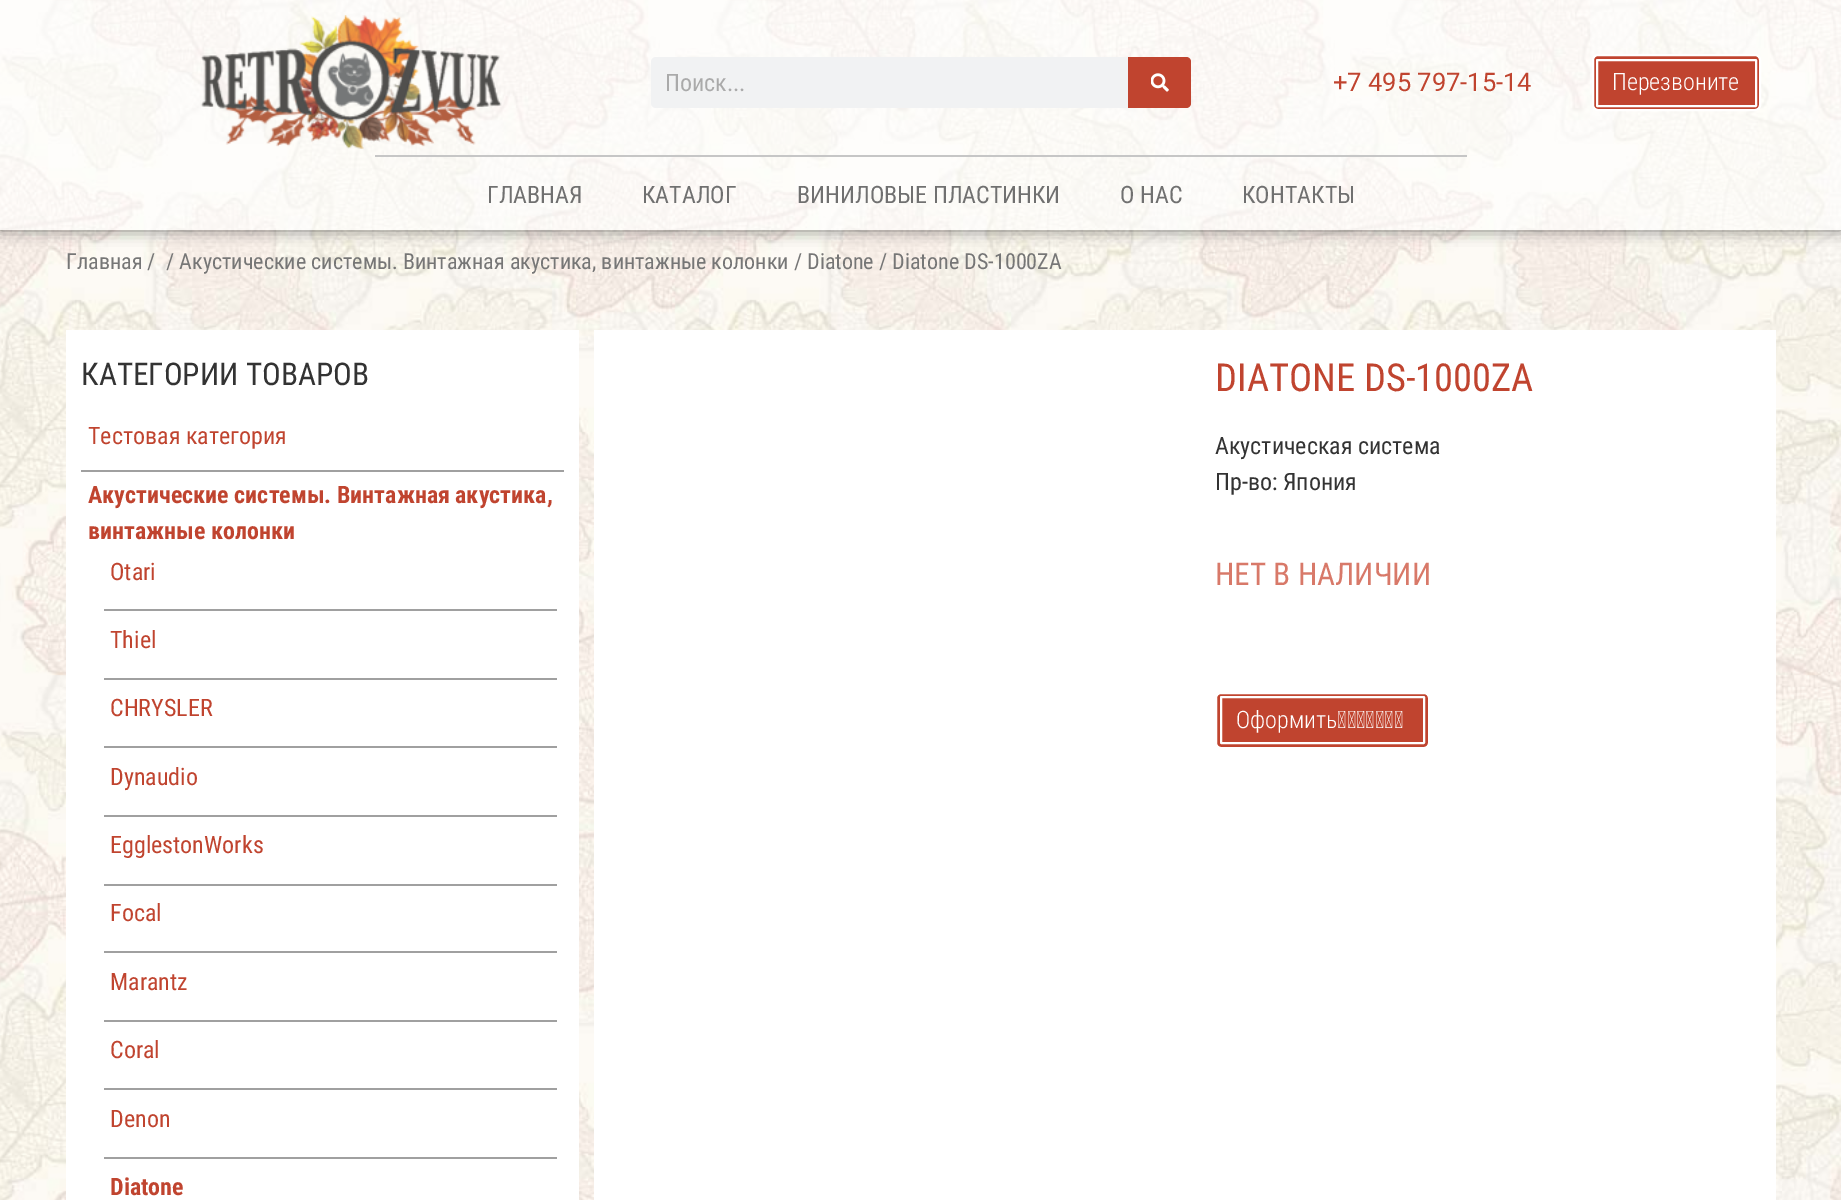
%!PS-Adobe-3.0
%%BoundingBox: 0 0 1841 1200
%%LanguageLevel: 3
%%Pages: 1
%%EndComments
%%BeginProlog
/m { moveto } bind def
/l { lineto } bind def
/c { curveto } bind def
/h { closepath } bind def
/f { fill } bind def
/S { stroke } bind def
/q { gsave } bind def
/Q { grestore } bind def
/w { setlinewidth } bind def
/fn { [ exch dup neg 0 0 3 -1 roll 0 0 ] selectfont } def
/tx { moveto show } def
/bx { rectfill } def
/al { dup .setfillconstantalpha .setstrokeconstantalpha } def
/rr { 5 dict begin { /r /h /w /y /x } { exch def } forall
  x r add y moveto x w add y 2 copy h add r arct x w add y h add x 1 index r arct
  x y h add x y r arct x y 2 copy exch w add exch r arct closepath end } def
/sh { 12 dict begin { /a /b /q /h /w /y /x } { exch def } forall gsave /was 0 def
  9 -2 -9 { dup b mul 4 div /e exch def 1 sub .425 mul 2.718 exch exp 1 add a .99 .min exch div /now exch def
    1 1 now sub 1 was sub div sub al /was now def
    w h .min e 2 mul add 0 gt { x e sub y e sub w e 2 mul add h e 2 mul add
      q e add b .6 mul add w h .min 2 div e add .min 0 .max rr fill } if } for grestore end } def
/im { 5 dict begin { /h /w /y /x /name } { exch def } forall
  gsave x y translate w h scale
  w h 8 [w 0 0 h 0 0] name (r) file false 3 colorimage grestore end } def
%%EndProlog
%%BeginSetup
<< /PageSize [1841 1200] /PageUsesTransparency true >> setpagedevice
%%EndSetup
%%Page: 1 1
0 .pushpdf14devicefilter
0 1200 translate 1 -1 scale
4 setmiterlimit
1 setgray
0 0 1841 1200 bx
(image0.raw) 0 0 1841 1200 im
q
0 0 m 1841 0 l 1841 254 l 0 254 l h 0 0 m 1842 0 l 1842 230 l 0 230 l h eoclip newpath
0 setgray
0 0 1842 230 0 7.5 0.5 sh
Q
0.6 al
0 0 1841 230 bx
1 al
(image1.raw) 200 15 302 134 im
0.945 0.949 0.953 setrgbcolor
651 57 540 51 5 rr f
/RobotoCondensed-Regular 24 fn
0.667 setgray
(Поиск...) 665 91 tx
0.753 0.267 0.184 setrgbcolor
1128 57 m 1186 57 l 1189 57 1191 59 1191 62 c 1191 103 l 1191 106 1189 108 1186 108 c 1128 108 l h f
(image2.raw) 1151 73 18 19 im
/Roboto-Regular 25.5 fn
(+7 495 797-15-14) 1333 91 tx
1593 55 167 55 5 rr q f Q
1 setgray
2 w
S
1597 60 159 46 0.5 rr S
/RobotoCondensed-Light 24 fn
(Перезвоните) 1612 90 tx
0.776 setgray
375 155 1092 2 bx
/RobotoCondensed-Regular 24 fn
0.439 setgray
(ГЛАВНАЯ) 487 203 tx
(КАТАЛОГ) 642 203 tx
(ВИНИЛОВЫЕ ПЛАСТИНКИ) 797 203 tx
(О НАС) 1120 203 tx
(КОНТАКТЫ) 1242 203 tx
/RobotoCondensed-Regular 22.1 fn
0.463 setgray
(Главная /) 66 269 tx
(/ Акустические системы. Винтажная акустика, винтажные колонки / Diatone / Diatone DS-1000ZA) 166 269 tx
1 setgray
66 330 513 870 bx
/RobotoCondensed-Regular 31.25 fn
0.2 setgray
(КАТЕГОРИИ ТОВАРОВ) 81 385 tx
/RobotoCondensed-Regular 24 fn
0.753 0.267 0.184 setrgbcolor
(Тестовая категория) 88 444 tx
0.627 setgray
81 470 483 2 bx
/RobotoCondensed-Bold 24 fn
0.753 0.267 0.184 setrgbcolor
(Акустические системы. Винтажная акустика,) 88 503 tx
(винтажные колонки) 88 539 tx
/RobotoCondensed-Regular 24 fn
(Otari) 110 580 tx
0.627 setgray
104 609 453 2 bx
0.753 0.267 0.184 setrgbcolor
(Thiel) 110 648 tx
0.627 setgray
104 678 453 2 bx
0.753 0.267 0.184 setrgbcolor
(CHRYSLER) 110 716 tx
0.627 setgray
104 746 453 2 bx
0.753 0.267 0.184 setrgbcolor
(Dynaudio) 110 785 tx
0.627 setgray
104 815 453 2 bx
0.753 0.267 0.184 setrgbcolor
(EgglestonWorks) 110 853 tx
0.627 setgray
104 884 453 2 bx
0.753 0.267 0.184 setrgbcolor
(Focal) 110 921 tx
0.627 setgray
104 951 453 2 bx
0.753 0.267 0.184 setrgbcolor
(Marantz) 110 990 tx
0.627 setgray
104 1020 453 2 bx
0.753 0.267 0.184 setrgbcolor
(Coral) 110 1058 tx
0.627 setgray
104 1088 453 2 bx
0.753 0.267 0.184 setrgbcolor
(Denon) 110 1127 tx
0.627 setgray
104 1157 453 2 bx
/RobotoCondensed-Bold 24 fn
0.753 0.267 0.184 setrgbcolor
(Diatone) 110 1195 tx
1 setgray
594 330 1182 870 bx
/RobotoCondensed-Regular 38.5 fn
0.753 0.267 0.184 setrgbcolor
(DIATONE DS-1000ZA) 1215 391 tx
/RobotoCondensed-Regular 24 fn
0.2 setgray
(Акустическая система) 1215 454 tx
(Пр-во: Япония) 1215 490 tx
/RobotoCondensed-Regular 31.25 fn
0.847 0.475 0.412 setrgbcolor
(НЕТ В НАЛИЧИИ) 1215 585 tx
0.753 0.267 0.184 setrgbcolor
1216 693 213 55 5 rr q f Q
1 setgray
S
1221 697 203 46 0.5 rr S
/RobotoCondensed-Light 24 fn
(Оформить заявку) 1236 728 tx
.poppdf14devicefilter showpage
%%EOF
